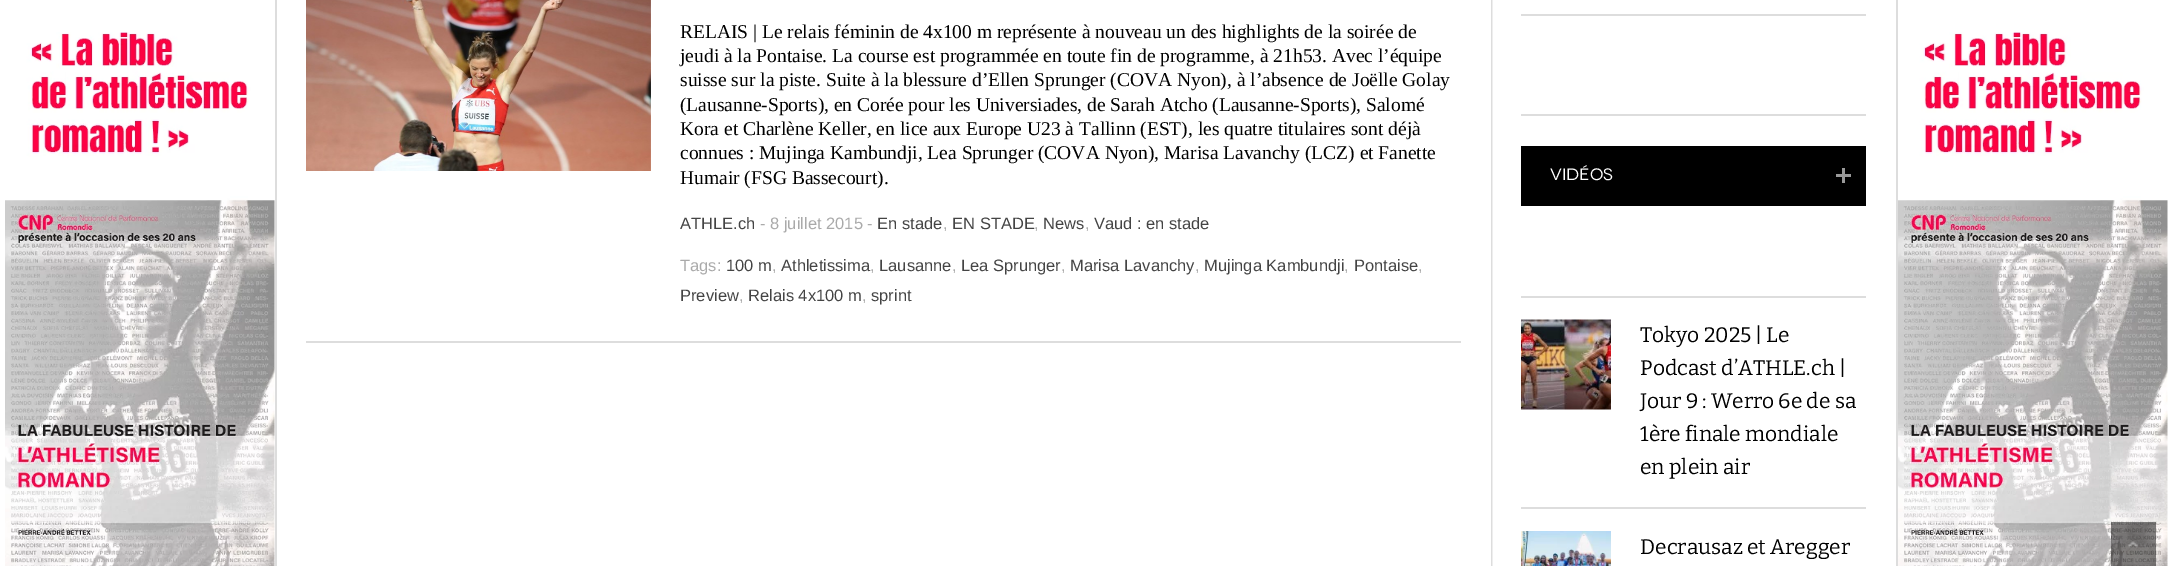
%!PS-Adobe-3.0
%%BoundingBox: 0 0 2170 566
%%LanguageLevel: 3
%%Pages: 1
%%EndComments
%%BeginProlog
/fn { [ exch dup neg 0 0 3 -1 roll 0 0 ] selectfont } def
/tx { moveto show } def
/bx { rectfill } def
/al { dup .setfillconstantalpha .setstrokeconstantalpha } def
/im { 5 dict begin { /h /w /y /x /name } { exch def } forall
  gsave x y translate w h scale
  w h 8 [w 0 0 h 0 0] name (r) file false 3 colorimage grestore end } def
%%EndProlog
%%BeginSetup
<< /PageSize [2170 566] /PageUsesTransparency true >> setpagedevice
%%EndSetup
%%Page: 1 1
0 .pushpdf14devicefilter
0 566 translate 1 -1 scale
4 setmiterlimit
1 setgray
0 0 2170 566 bx
0.867 setgray
1896 0 2 566 bx
275 0 2 566 bx
(image0.raw) 1491 0 2 566 im
306 341 1155 2 bx
(image1.raw) 306 0 345 171 im
/LiberationSerif-Regular 19.5 fn
0 setgray
(RELAIS | Le relais féminin de 4x100 m représente à nouveau un des highlights de la soirée de) 680 38 tx
(jeudi à la Pontaise. La course est programmée en toute fin de programme, à 21h53. Avec l’équipe) 680 62 tx
(suisse sur la piste. Suite à la blessure d’Ellen Sprunger \(COVA Nyon\), à l’absence de Joëlle Golay) 680 86 tx
(\(Lausanne-Sports\), en Corée pour les Universiades, de Sarah Atcho \(Lausanne-Sports\), Salomé) 680 111 tx
(Kora et Charlène Keller, en lice aux Europe U23 à Tallinn \(EST\), les quatre titulaires sont déjà) 680 135 tx
(connues : Mujinga Kambundji, Lea Sprunger \(COVA Nyon\), Marisa Lavanchy \(LCZ\) et Fanette) 680 159 tx
(Humair \(FSG Bassecourt\).) 680 184 tx
/LiberationSans-Regular 16.5 fn
0.267 setgray
(ATHLE.ch) 680 229 tx
0.667 setgray
(- 8 juillet 2015 -) 760 229 tx
0.267 setgray
(En stade) 877 229 tx
0.667 setgray
(,) 943 229 tx
0.267 setgray
(EN STADE) 952 229 tx
0.667 setgray
(,) 1034 229 tx
0.267 setgray
(News) 1043 229 tx
0.667 setgray
(,) 1085 229 tx
0.267 setgray
(Vaud : en stade) 1094 229 tx
0.667 setgray
(Tags:) 680 271 tx
0.267 setgray
(100 m) 726 271 tx
0.667 setgray
(,) 772 271 tx
0.267 setgray
(Athletissima) 781 271 tx
0.667 setgray
(,) 870 271 tx
0.267 setgray
(Lausanne) 879 271 tx
0.667 setgray
(,) 952 271 tx
0.267 setgray
(Lea Sprunger) 961 271 tx
0.667 setgray
(,) 1061 271 tx
0.267 setgray
(Marisa Lavanchy) 1070 271 tx
0.667 setgray
(,) 1195 271 tx
0.267 setgray
(Mujinga Kambundji) 1204 271 tx
0.667 setgray
(,) 1344 271 tx
0.267 setgray
(Pontaise) 1354 271 tx
0.667 setgray
(,) 1418 271 tx
0.267 setgray
(Preview) 680 301 tx
0.667 setgray
(,) 739 301 tx
0.267 setgray
(Relais 4x100 m) 748 301 tx
0.667 setgray
(,) 862 301 tx
0.267 setgray
(sprint) 871 301 tx
0.867 setgray
1521 14 345 2 bx
1521 114 345 2 bx
0 setgray
1521 146 345 60 bx
/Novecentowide-Regular 16.5 fn
1 setgray
(VIDÉOS) 1550 180 tx
0.6 setgray
1836 174 15 3 bx
1842 168 3 15 bx
0.867 setgray
1521 296 345 2 bx
(image2.raw) 1521 319 90 91 im
0.07 al
0.165 setgray
1528 325 76 75 bx
1 al
(image3.raw) 1551 345 31 36 im
/Bitter-Regular 21 fn
0 setgray
(Tokyo 2025 | Le) 1640 342 tx
(Podcast d’ATHLE.ch |) 1640 375 tx
(Jour 9 : Werro 6e de sa) 1640 408 tx
(1ère finale mondiale) 1640 441 tx
(en plein air) 1640 474 tx
0.867 setgray
1521 507 345 2 bx
(image4.raw) 1521 531 90 35 im
0 setgray
(Decrausaz et Aregger) 1640 554 tx
(image5.raw) 5 32 270 534 im
(image6.raw) 1898 32 270 534 im
0.5 al
0.027 setgray
2111 522 45 44 bx
1 al
(image7.raw) 2128 541 10 7 im
.poppdf14devicefilter showpage
%%EOF
